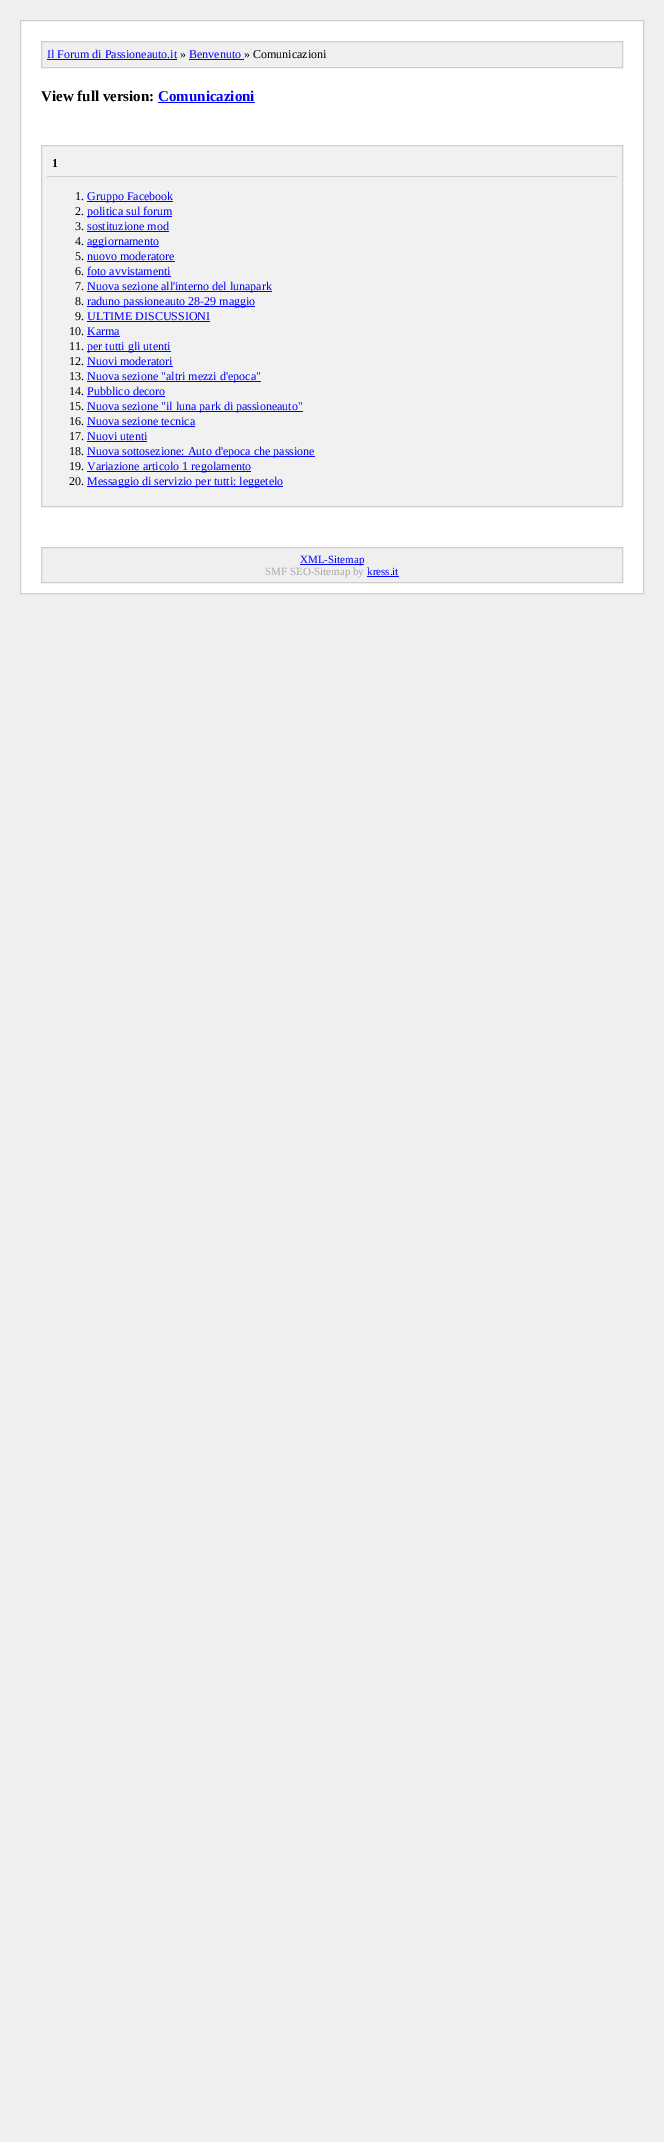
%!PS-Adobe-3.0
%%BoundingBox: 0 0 664 2142
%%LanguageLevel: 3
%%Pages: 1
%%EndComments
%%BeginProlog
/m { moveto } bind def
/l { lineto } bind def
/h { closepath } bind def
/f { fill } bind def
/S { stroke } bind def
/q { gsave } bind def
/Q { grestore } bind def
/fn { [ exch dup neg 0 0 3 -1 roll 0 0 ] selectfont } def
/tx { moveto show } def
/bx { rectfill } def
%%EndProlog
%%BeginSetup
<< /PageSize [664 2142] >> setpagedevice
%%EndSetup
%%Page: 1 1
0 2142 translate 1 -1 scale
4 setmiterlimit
0.937 setgray
0 0 664 2142 bx
1 setgray
20.5 20.5 m 643.5 20.5 l 643.5 593.5 l 20.5 593.5 l h q f Q
0.808 setgray
S
0.937 setgray
41.5 41.5 m 622.5 41.5 l 622.5 67.5 l 41.5 67.5 l h q f Q
0.808 setgray
S
/LiberationSerif-Regular 12 fn
0 0 1 setrgbcolor
(Il Forum di Passioneauto.it) 47 58 tx
47 59 130 1 bx
0 setgray
(») 180 58 tx
0 0 1 setrgbcolor
(Benvenuto) 189 58 tx
189 59 55 1 bx
0 setgray
(» Comunicazioni) 244 58 tx
/LiberationSerif-Bold 15 fn
(View full version:) 41 101 tx
0 0 1 setrgbcolor
(Comunicazioni) 158 101 tx
158 102 97 1 bx
0.945 setgray
41.5 145.5 m 622.5 145.5 l 622.5 506.5 l 41.5 506.5 l h q f Q
0.808 setgray
S
47 176 570 1 bx
/LiberationSerif-Bold 12 fn
0 setgray
(1) 52 167 tx
/LiberationSerif-Regular 12 fn
(1.) 75 200 tx
0 0 1 setrgbcolor
87 201 86 1 bx
(Gruppo Facebook) 87 200 tx
0 setgray
(2.) 75 215 tx
0 0 1 setrgbcolor
87 216 85 1 bx
(politica sul forum) 87 215 tx
0 setgray
(3.) 75 230 tx
0 0 1 setrgbcolor
(sostituzione mod) 87 230 tx
87 231 82 1 bx
0 setgray
(4.) 75 245 tx
0 0 1 setrgbcolor
87 246 72 1 bx
(aggiornamento) 87 245 tx
0 setgray
(5.) 75 260 tx
0 0 1 setrgbcolor
(nuovo moderatore) 87 260 tx
87 261 88 1 bx
0 setgray
(6.) 75 275 tx
0 0 1 setrgbcolor
(foto avvistamenti) 87 275 tx
87 276 84 1 bx
0 setgray
(7.) 75 290 tx
0 0 1 setrgbcolor
87 291 185 1 bx
(Nuova sezione all'interno del lunapark) 87 290 tx
0 setgray
(8.) 75 305 tx
0 0 1 setrgbcolor
87 306 168 1 bx
(raduno passioneauto 28-29 maggio) 87 305 tx
0 setgray
(9.) 75 320 tx
0 0 1 setrgbcolor
(ULTIME DISCUSSIONI) 87 320 tx
87 321 123 1 bx
0 setgray
(10.) 69 335 tx
0 0 1 setrgbcolor
(Karma) 87 335 tx
87 336 33 1 bx
0 setgray
(11.) 69 350 tx
0 0 1 setrgbcolor
87 351 84 1 bx
(per tutti gli utenti) 87 350 tx
0 setgray
(12.) 69 365 tx
0 0 1 setrgbcolor
(Nuovi moderatori) 87 365 tx
87 366 86 1 bx
0 setgray
(13.) 69 380 tx
0 0 1 setrgbcolor
87 381 174 1 bx
(Nuova sezione "altri mezzi d'epoca") 87 380 tx
0 setgray
(14.) 69 395 tx
0 0 1 setrgbcolor
(Pubblico decoro) 87 395 tx
87 396 78 1 bx
0 setgray
(15.) 69 410 tx
0 0 1 setrgbcolor
87 411 216 1 bx
(Nuova sezione "il luna park di passioneauto") 87 410 tx
0 setgray
(16.) 69 425 tx
0 0 1 setrgbcolor
(Nuova sezione tecnica) 87 425 tx
87 426 108 1 bx
0 setgray
(17.) 69 440 tx
0 0 1 setrgbcolor
(Nuovi utenti) 87 440 tx
87 441 60 1 bx
0 setgray
(18.) 69 455 tx
0 0 1 setrgbcolor
87 456 228 1 bx
(Nuova sottosezione: Auto d'epoca che passione) 87 455 tx
0 setgray
(19.) 69 470 tx
0 0 1 setrgbcolor
87 471 164 1 bx
(Variazione articolo 1 regolamento) 87 470 tx
0 setgray
(20.) 69 485 tx
0 0 1 setrgbcolor
87 486 196 1 bx
(Messaggio di servizio per tutti: leggetelo) 87 485 tx
0.937 setgray
41.5 547.5 m 622.5 547.5 l 622.5 582.5 l 41.5 582.5 l h q f Q
0.808 setgray
S
0 0 1 setrgbcolor
300 564 64 1 bx
/LiberationSerif-Regular 11 fn
(XML-Sitemap) 300 563 tx
0.667 setgray
(SMF SEO-Sitemap by) 265 575 tx
0 0 1 setrgbcolor
(kress.it) 367 575 tx
367 576 32 1 bx
showpage
%%EOF
